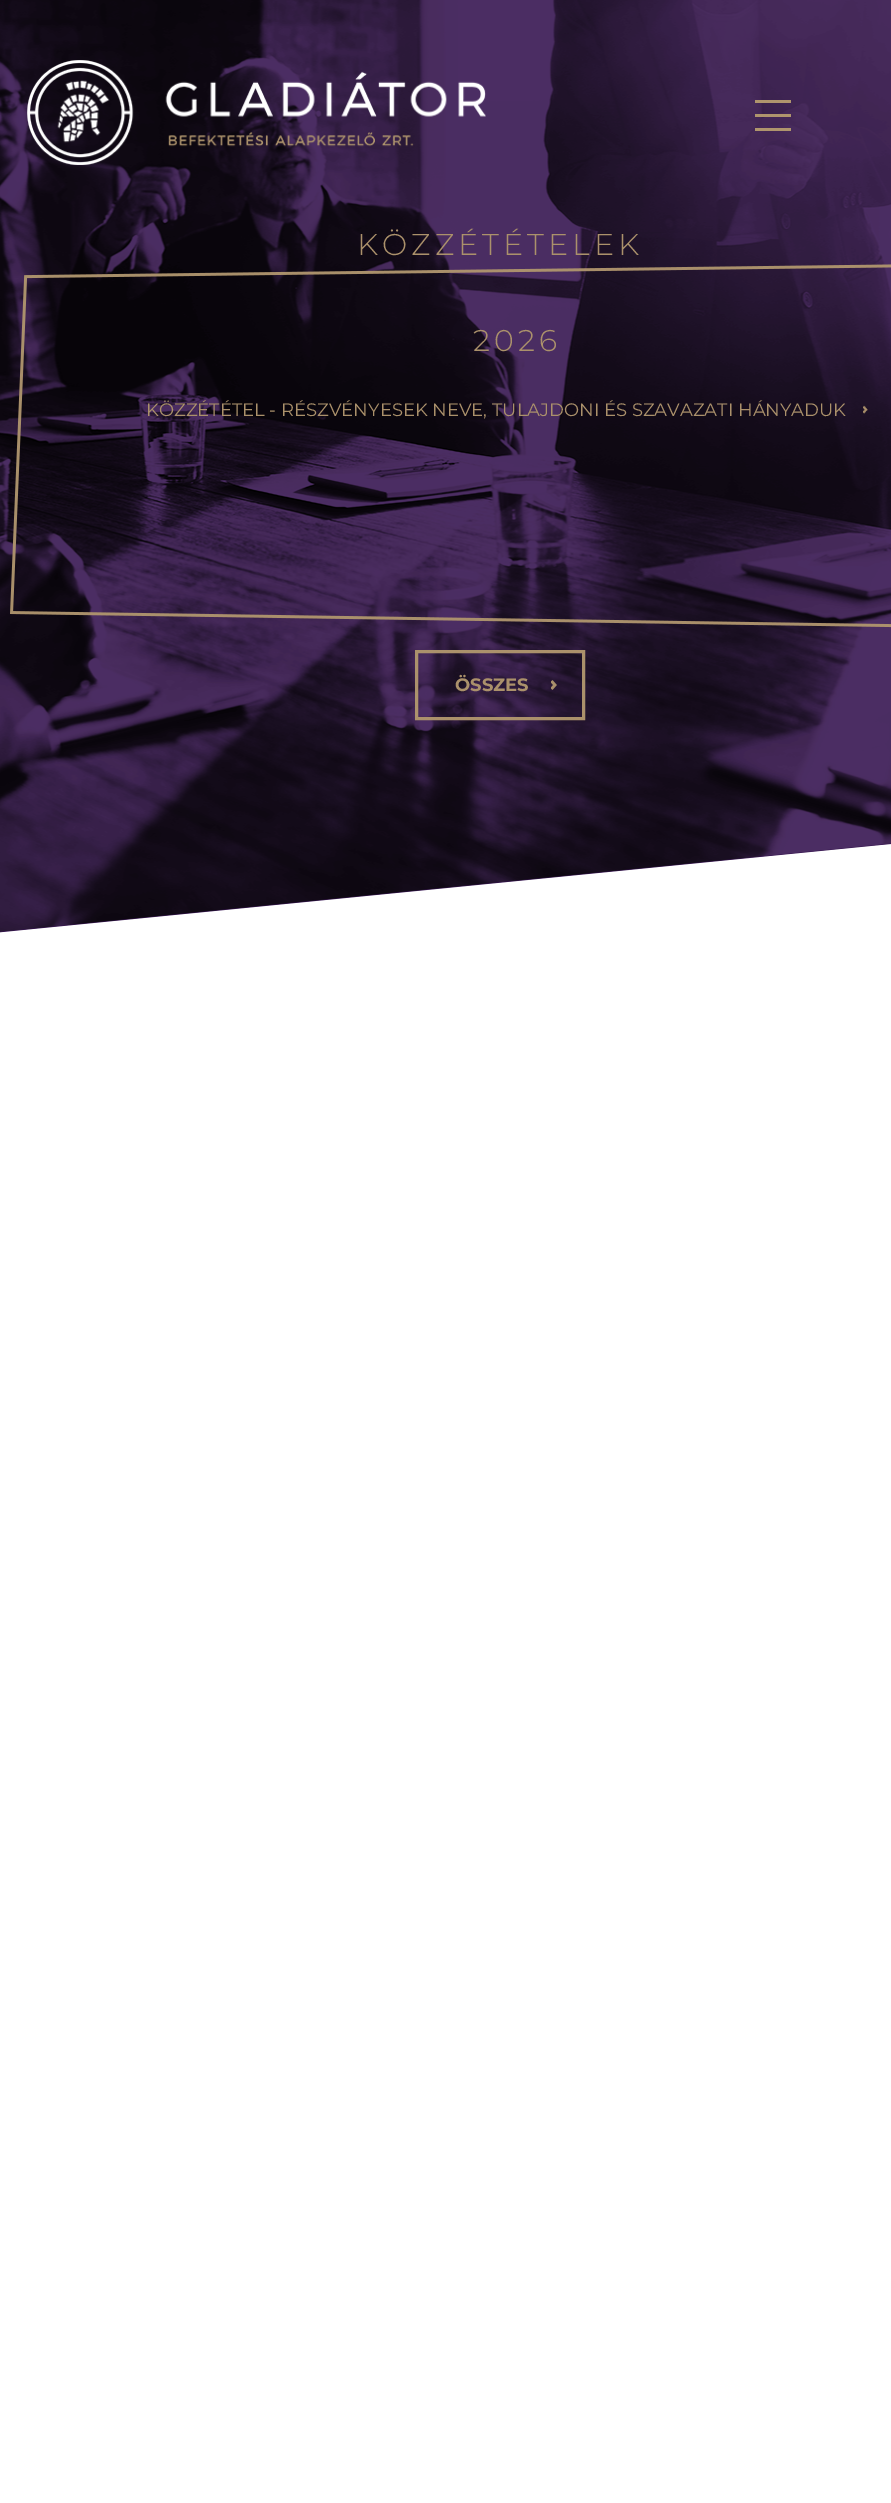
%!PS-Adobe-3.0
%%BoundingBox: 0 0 891 2503
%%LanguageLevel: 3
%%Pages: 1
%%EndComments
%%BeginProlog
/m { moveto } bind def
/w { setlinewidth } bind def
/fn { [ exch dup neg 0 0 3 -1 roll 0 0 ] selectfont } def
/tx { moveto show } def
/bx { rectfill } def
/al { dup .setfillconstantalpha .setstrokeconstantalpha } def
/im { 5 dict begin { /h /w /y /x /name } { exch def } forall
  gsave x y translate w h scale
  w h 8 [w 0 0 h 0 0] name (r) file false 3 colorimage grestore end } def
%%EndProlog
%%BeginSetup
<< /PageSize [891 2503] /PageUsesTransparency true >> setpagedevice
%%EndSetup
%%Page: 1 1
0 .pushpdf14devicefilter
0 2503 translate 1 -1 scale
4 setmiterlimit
1 setgray
0 0 891 2503 bx
(image1.raw) 0 0 891 933 im
(image0.raw) 27 60 459 105 im
0.686 0.584 0.427 setrgbcolor
755 100 36 3 bx
755 114 36 3 bx
755 128 36 3 bx
/Montserrat-Light 30 fn
0.671 0.569 0.42 setrgbcolor
357 255 m 4 0 (KÖZZÉTÉTELEK) ashow
(image2.raw) 10 264 881 364 im
473 351 m 4 0 (2026) ashow
(image3.raw) 863 405 5 9 im
/Montserrat-Regular 18 fn
(KÖZZÉTÉTEL - RÉSZVÉNYESEK NEVE, TULAJDONI ÉS SZAVAZATI HÁNYADUK) 146 416 tx
(image4.raw) 551 680 6 10 im
0.97 al
0.686 0.584 0.427 setrgbcolor
3 w
416.5 651.5 167 67 rectstroke
/Montserrat-Bold 18 fn
1 al
0.671 0.569 0.42 setrgbcolor
(ÖSSZES) 455 691 tx
.poppdf14devicefilter showpage
%%EOF
